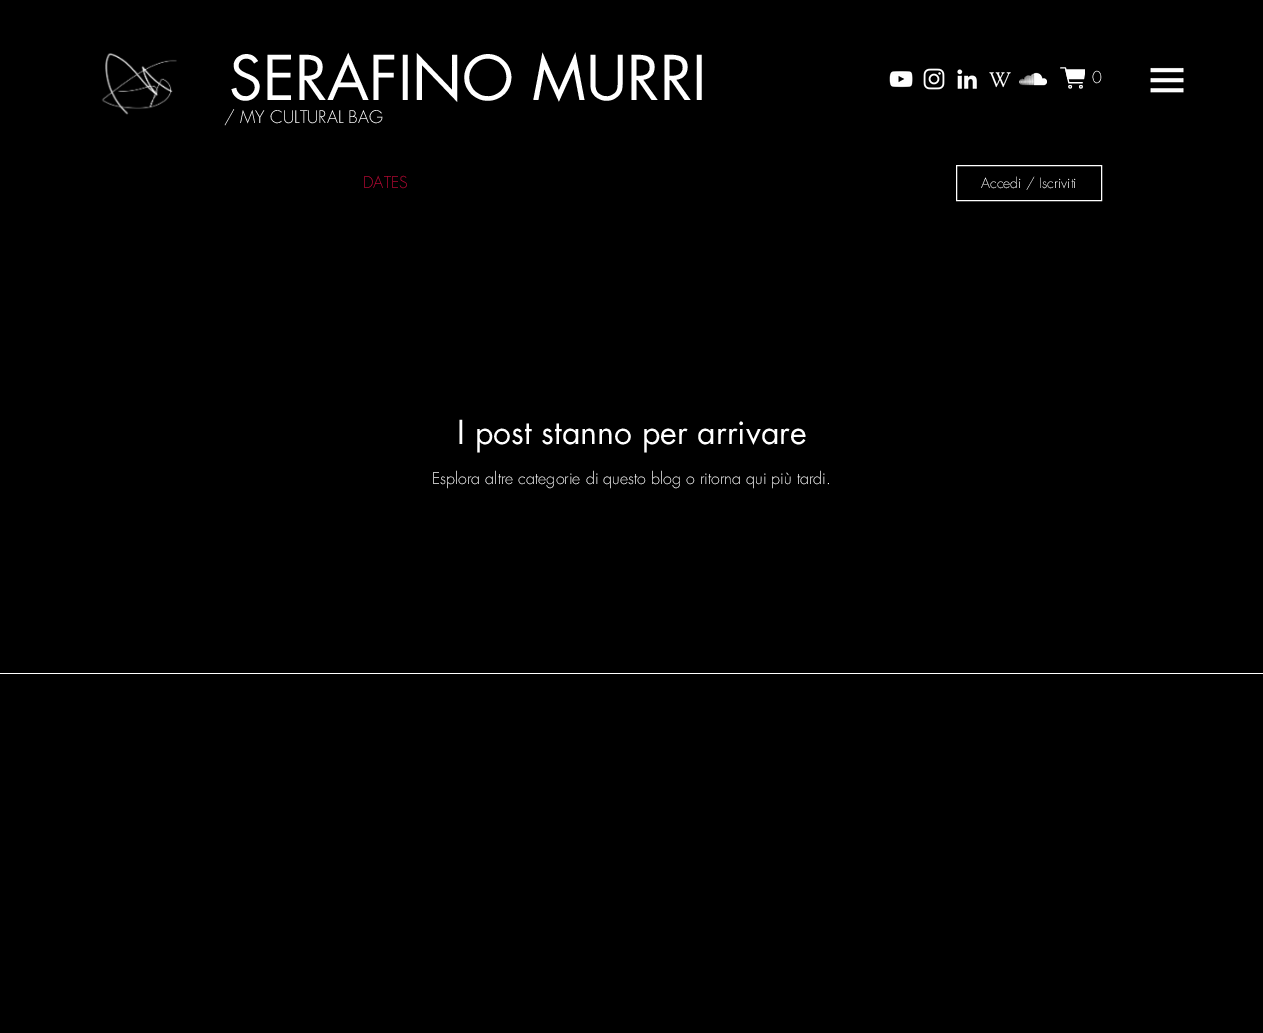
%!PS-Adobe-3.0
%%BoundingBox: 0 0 1263 1033
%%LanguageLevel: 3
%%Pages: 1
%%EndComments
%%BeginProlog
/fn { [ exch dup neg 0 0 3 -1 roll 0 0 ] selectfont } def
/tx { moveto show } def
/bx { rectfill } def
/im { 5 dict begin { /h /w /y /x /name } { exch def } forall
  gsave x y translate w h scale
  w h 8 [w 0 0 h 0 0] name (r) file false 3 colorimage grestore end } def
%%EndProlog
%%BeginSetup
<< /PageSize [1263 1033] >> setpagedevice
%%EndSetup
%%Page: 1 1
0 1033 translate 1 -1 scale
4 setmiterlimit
0 setgray
0 0 1263 1033 bx
(image0.raw) 101 53 76 62 im
/futura-Regular 60 fn
1 setgray
(SERAFINO MURRI) 229 100 tx
/futura-Light 17 fn
(/ MY CULTURAL BAG) 224 123 tx
(image1.raw) 889 71 24 17 im
(image2.raw) 923 68 22 22 im
(image3.raw) 957 69 20 20 im
(image4.raw) 989 72 22 16 im
(image5.raw) 1019 72 28 14 im
(image6.raw) 1150 67 34 26 im
(image7.raw) 1060 67 25 22 im
/futura-Light 16 fn
(0) 1092 83 tx
0.702 0.035 0.2 setrgbcolor
(DATES) 363 188 tx
1 setgray
956.5 165.5 145 35 rectstroke
/futura-Light 14 fn
(Accedi / Iscriviti) 981 188 tx
/futura-Regular 32 fn
(I post stanno per arrivare) 457 444 tx
/futura-Light 16 fn
(Esplora altre categorie di questo blog o ritorna qui più tardi.) 432 484 tx
0 673 1263 1 bx
showpage
%%EOF
